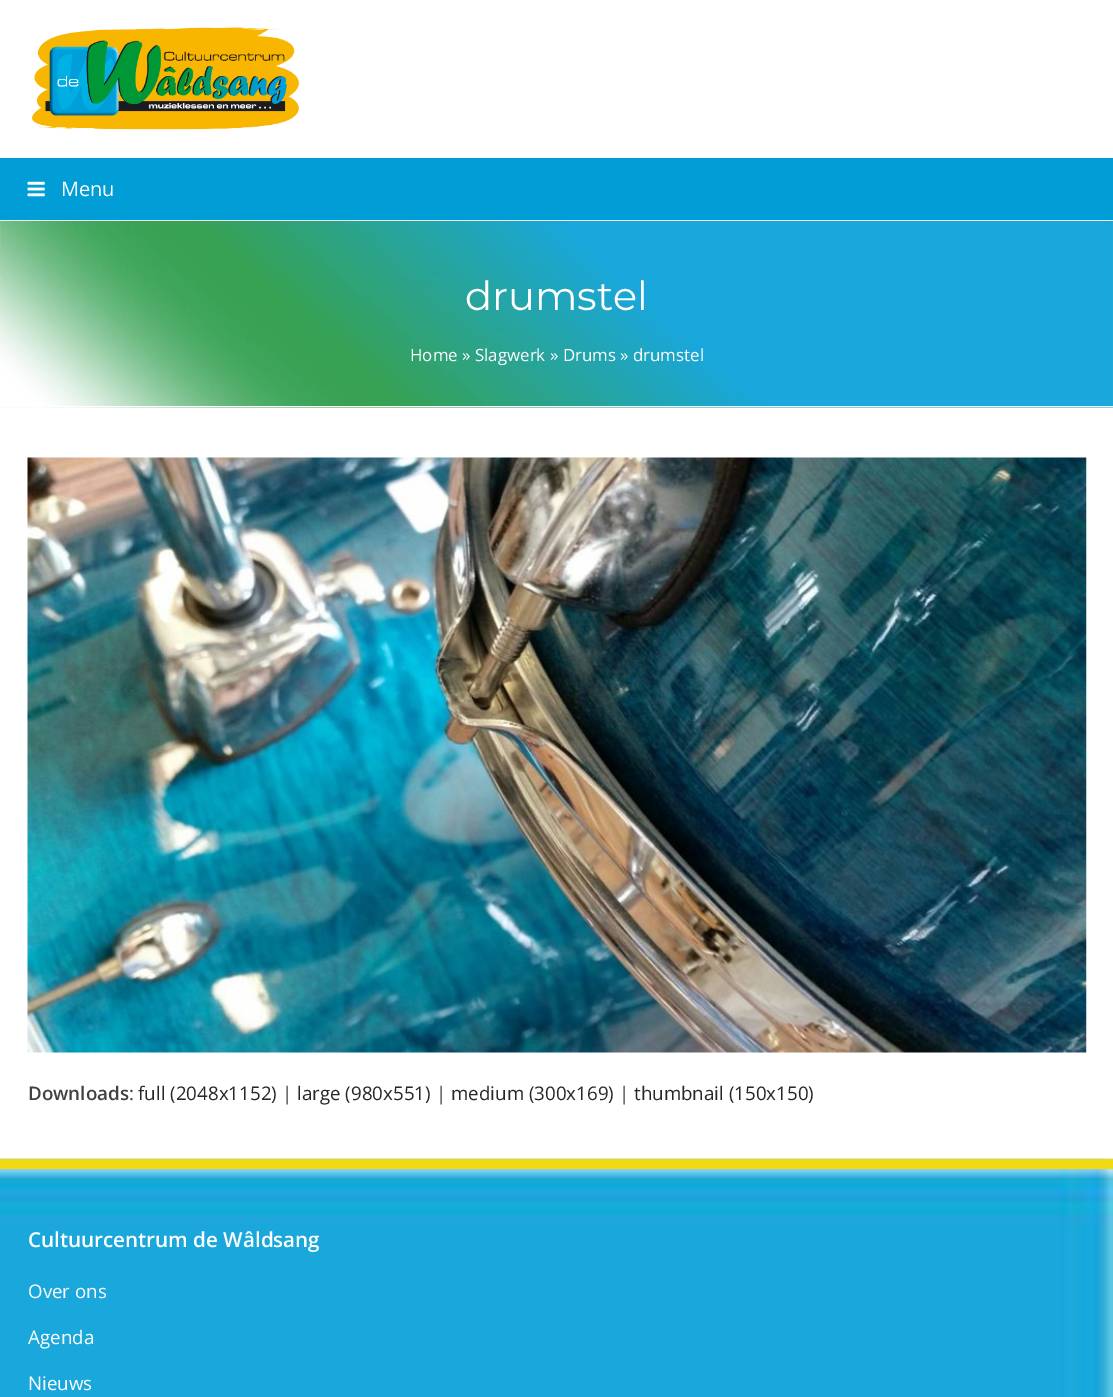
%!PS-Adobe-3.0
%%BoundingBox: 0 0 1113 1397
%%LanguageLevel: 3
%%Pages: 1
%%EndComments
%%BeginProlog
/fn { [ exch dup neg 0 0 3 -1 roll 0 0 ] selectfont } def
/tx { moveto show } def
/bx { rectfill } def
/im { 5 dict begin { /h /w /y /x /name } { exch def } forall
  gsave x y translate w h scale
  w h 8 [w 0 0 h 0 0] name (r) file false 3 colorimage grestore end } def
%%EndProlog
%%BeginSetup
<< /PageSize [1113 1397] >> setpagedevice
%%EndSetup
%%Page: 1 1
0 1397 translate 1 -1 scale
4 setmiterlimit
1 setgray
0 0 1113 1397 bx
(image0.raw) 32 27 267 103 im
0 0.616 0.843 setrgbcolor
0 158 1113 62 bx
(image1.raw) 27 181 18 16 im
/OpenSans-Regular 20 fn
1 setgray
(Menu) 61 196 tx
0.969 setgray
0 407 1113 1 bx
(image2.raw) 0 221 1113 187 im
0.933 setgray
0 220 1113 1 bx
1 setgray
51 406 1062 1 bx
/Montserrat-Regular 40 fn
(drumstel) 465 310 tx
/OpenSans-Regular 16.9 fn
(Home » Slagwerk » Drums » drumstel) 410 361 tx
(image3.raw) 27 457 1060 596 im
/OpenSans-SemiBold 18.75 fn
0.255 setgray
(Downloads) 28 1100 tx
/OpenSans-Regular 18.75 fn
(:) 129 1100 tx
0.153 setgray
(full \(2048x1152\)) 138 1100 tx
0.255 setgray
(|) 282 1100 tx
0.153 setgray
(large \(980x551\)) 297 1100 tx
0.255 setgray
(|) 436 1100 tx
0.153 setgray
(medium \(300x169\)) 451 1100 tx
0.255 setgray
(|) 619 1100 tx
0.153 setgray
(thumbnail \(150x150\)) 634 1100 tx
(image4.raw) 0 1158 1113 239 im
0.945 0.859 0.063 setrgbcolor
0 1159 1113 10 bx
/OpenSans-SemiBold 20.6 fn
1 setgray
(Cultuurcentrum de Wâldsang) 28 1247 tx
/OpenSans-Regular 18.75 fn
(Over ons) 28 1298 tx
(Agenda) 28 1344 tx
(Nieuws) 28 1390 tx
showpage
%%EOF
